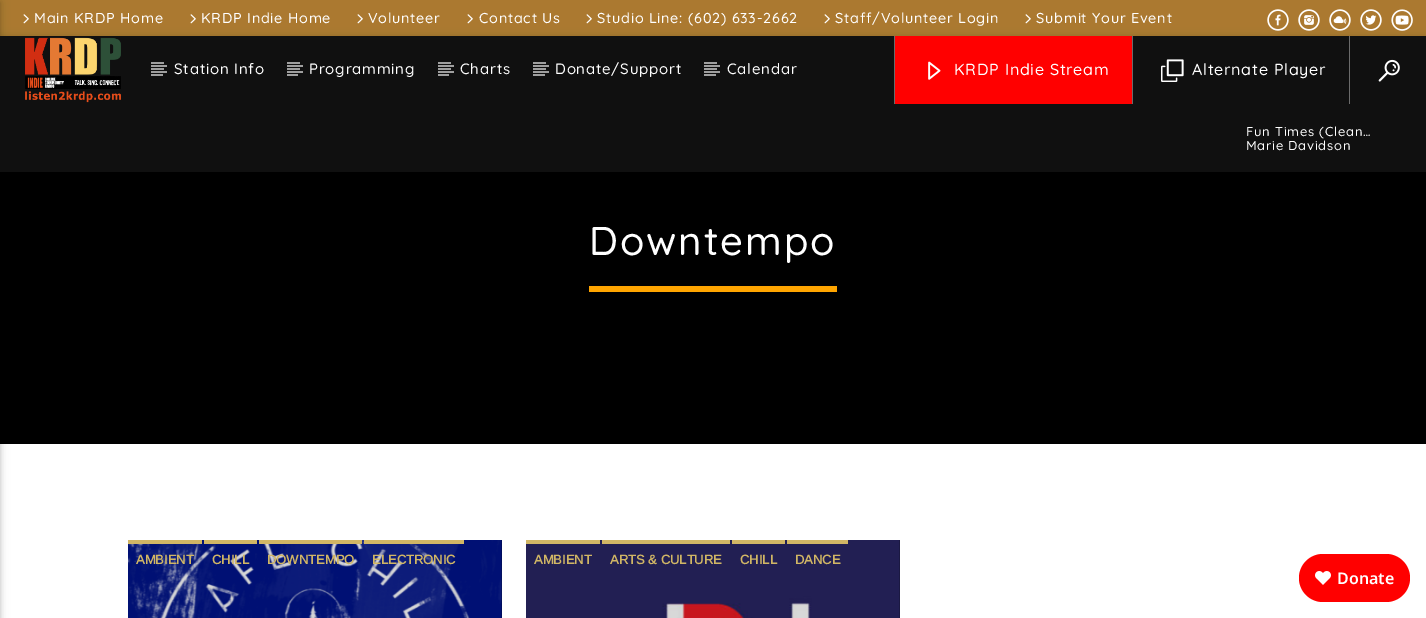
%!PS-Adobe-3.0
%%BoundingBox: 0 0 1426 618
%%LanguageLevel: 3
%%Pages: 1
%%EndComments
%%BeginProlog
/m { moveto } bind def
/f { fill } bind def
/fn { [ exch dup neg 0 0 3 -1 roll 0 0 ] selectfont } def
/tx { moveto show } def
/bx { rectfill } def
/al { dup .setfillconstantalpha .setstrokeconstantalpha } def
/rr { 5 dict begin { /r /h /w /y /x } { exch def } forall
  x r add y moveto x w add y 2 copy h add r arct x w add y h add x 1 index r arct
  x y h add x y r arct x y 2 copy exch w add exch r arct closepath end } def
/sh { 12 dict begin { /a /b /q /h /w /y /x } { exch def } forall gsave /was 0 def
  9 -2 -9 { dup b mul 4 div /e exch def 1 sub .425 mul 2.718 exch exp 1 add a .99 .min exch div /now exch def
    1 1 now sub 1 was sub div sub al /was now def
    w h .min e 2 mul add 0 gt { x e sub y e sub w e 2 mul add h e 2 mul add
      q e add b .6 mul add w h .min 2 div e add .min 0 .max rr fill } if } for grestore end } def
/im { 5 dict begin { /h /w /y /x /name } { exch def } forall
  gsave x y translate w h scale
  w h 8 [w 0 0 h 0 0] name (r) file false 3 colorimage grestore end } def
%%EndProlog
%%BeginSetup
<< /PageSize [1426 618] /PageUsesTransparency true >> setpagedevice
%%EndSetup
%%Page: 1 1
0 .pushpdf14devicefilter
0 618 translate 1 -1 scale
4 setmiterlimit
1 setgray
0 0 1426 618 bx
0.671 0.475 0.188 setrgbcolor
0 0 1426 36 bx
(image0.raw) 23 14 6 10 im
(image0.raw) 190 14 6 10 im
(image0.raw) 357 14 6 10 im
(image0.raw) 467 14 6 10 im
(image0.raw) 586 14 6 10 im
(image0.raw) 824 14 6 10 im
(image0.raw) 1025 14 6 10 im
(image1.raw) 1267 9 22 22 im
(image2.raw) 1298 9 22 22 im
(image3.raw) 1329 9 22 22 im
(image4.raw) 1360 9 22 22 im
(image5.raw) 1391 9 22 22 im
0 setgray
0 172 1426 272 bx
0 38 1426 136 0 5 0.12 sh
0 38 1426 136 0 2.5 0.16 sh
0.063 setgray
0 36 1426 136 bx
0 setgray
-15 2 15 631 0 5 0.12 sh
-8 2 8 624 0 2.5 0.16 sh
/Quicksand-Medium 14.4 fn
1 setgray
34 23 m 0.75 0 (Main KRDP Home) ashow
201 23 m 0.75 0 (KRDP Indie Home) ashow
368 23 m 0.75 0 (Volunteer) ashow
479 23 m 0.75 0 (Contact Us) ashow
597 23 m 0.75 0 (Studio Line: \(602\) 633-2662) ashow
835 23 m 0.75 0 (Staff/Volunteer Login) ashow
1036 23 m 0.75 0 (Submit Your Event) ashow
(image6.raw) 25 37 96 66 im
0.624 setgray
151 74 12 2 bx
151 62 13 2 bx
151 68 13 2 bx
/Quicksand-Medium 15 fn
1 setgray
174 74 m 0.75 0 (Station Info) ashow
0.624 setgray
151 65 16 2 bx
151 71 16 2 bx
287 74 11 2 bx
287 62 13 2 bx
287 68 13 2 bx
1 setgray
309 74 m 0.75 0 (Programming) ashow
0.624 setgray
287 65 16 2 bx
287 71 16 2 bx
438 74 11 2 bx
438 62 13 2 bx
438 68 13 2 bx
1 setgray
460 74 m 0.75 0 (Charts) ashow
0.624 setgray
438 65 16 2 bx
438 71 16 2 bx
533 74 12 2 bx
533 62 13 2 bx
533 68 13 2 bx
1 setgray
555 74 m 0.75 0 (Donate/Support) ashow
0.624 setgray
533 65 16 2 bx
533 71 16 2 bx
704 74 12 2 bx
704 62 13 2 bx
704 68 13 2 bx
1 setgray
727 74 m 0.75 0 (Calendar) ashow
0.624 setgray
704 65 16 2 bx
704 71 16 2 bx
0.42 setgray
894 36 1 68 bx
1 0 0 setrgbcolor
895 36 237 68 bx
(image7.raw) 928 61 13 19 im
/Quicksand-Medium 16 fn
1 setgray
954 75 m 0.75 0 (KRDP Indie Stream) ashow
0.42 setgray
1132 36 1 68 bx
(image8.raw) 1161 59 23 23 im
1 setgray
1192 75 m 0.75 0 (Alternate Player) ashow
0.42 setgray
1349 36 1 68 bx
(image9.raw) 1378 59 22 23 im
/Quicksand-Medium 13 fn
1 setgray
1246 136 m 0.75 0 (Fun Times \(Clean…) ashow
1246 150 m 0.75 0 (Marie Davidson) ashow
1 0.647 0 setrgbcolor
589 286 248 6 bx
/Quicksand-Medium 40 fn
1 setgray
589 255 m 2 0 (Downtempo) ashow
0 setgray
128 540 374 78 bx
(image10.raw) 128 540 374 78 im
0.82 0.714 0.396 setrgbcolor
128 540 74 4 bx
/Arimo-Bold 13 fn
(AMBIENT) 136 564 tx
204 540 53 4 bx
(CHILL) 212 564 tx
259 540 103 4 bx
(DOWNTEMPO) 267 564 tx
364 540 100 4 bx
(ELECTRONIC) 372 564 tx
0 setgray
526 540 374 78 bx
(image11.raw) 526 540 374 78 im
0.82 0.714 0.396 setrgbcolor
526 540 74 4 bx
(AMBIENT) 534 564 tx
602 540 128 4 bx
(ARTS & CULTURE) 610 564 tx
732 540 53 4 bx
(CHILL) 740 564 tx
787 540 61 4 bx
(DANCE) 795 564 tx
1 0 0 setrgbcolor
1299 554 111 48 24 rr f
(image12.raw) 1315 571 16 14 im
/NotoSans-SemiBold 16 fn
1 setgray
(Donate) 1337 584 tx
.poppdf14devicefilter showpage
%%EOF
